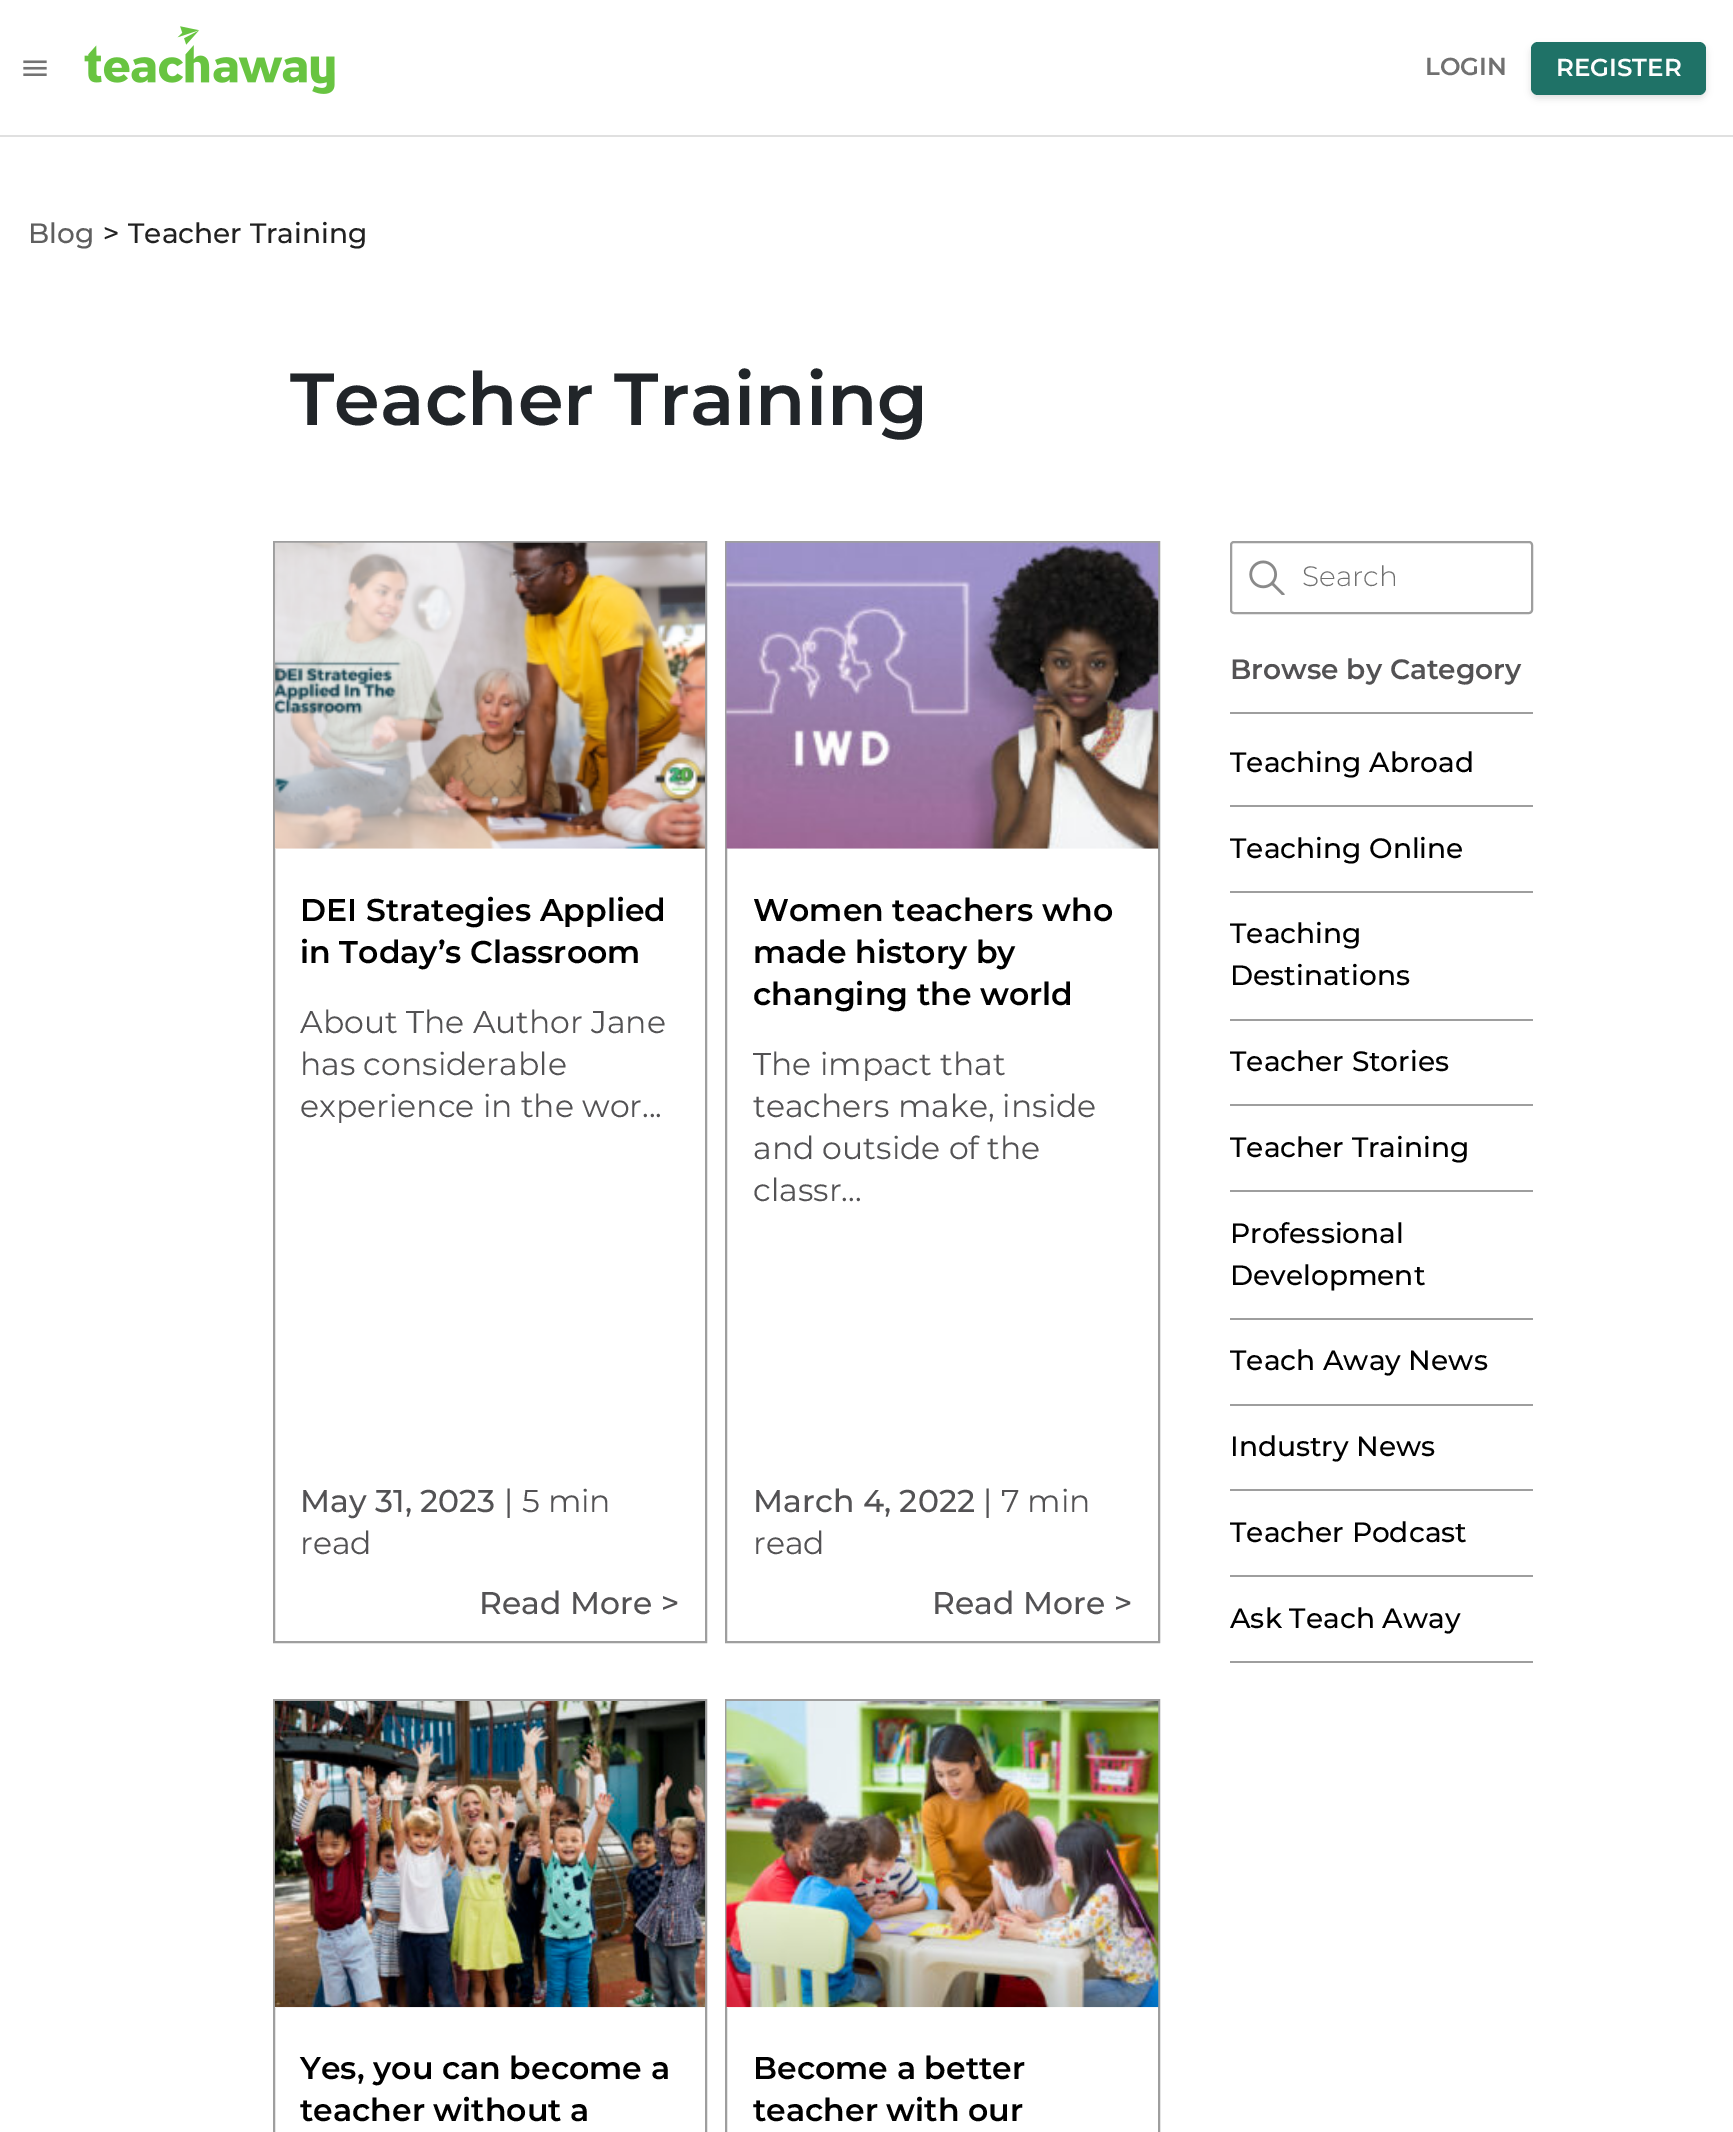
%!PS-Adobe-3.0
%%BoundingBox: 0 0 1733 2132
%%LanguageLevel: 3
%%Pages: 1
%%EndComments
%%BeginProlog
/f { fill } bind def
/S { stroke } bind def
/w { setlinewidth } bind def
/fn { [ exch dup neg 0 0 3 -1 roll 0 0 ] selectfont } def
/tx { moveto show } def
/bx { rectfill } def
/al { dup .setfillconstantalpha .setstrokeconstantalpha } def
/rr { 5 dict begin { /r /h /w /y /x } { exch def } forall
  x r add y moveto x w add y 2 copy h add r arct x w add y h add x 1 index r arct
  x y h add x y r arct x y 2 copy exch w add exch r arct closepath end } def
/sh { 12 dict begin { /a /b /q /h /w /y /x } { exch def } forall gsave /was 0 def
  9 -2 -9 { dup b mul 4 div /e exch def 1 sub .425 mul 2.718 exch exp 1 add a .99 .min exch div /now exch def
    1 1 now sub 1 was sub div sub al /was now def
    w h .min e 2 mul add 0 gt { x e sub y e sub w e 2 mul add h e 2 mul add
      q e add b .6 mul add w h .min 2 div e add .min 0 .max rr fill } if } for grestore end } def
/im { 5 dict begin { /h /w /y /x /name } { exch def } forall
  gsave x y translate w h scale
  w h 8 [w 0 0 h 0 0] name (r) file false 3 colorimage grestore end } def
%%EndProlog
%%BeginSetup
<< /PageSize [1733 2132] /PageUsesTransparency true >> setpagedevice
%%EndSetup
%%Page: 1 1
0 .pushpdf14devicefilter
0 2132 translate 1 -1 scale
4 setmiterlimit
1 setgray
0 0 1733 2132 bx
0.878 setgray
0 135 1733 2 bx
(image0.raw) 23 60 24 16 im
(image1.raw) 84 26 251 68 im
/Montserrat-SemiBold 24.5 fn
0.439 setgray
(LOGIN) 1425 75 tx
0 setgray
1531 46 175 52 7 3.5 0.12 sh
0.122 0.447 0.404 setrgbcolor
1531 42 175 53 7 rr f
0.992 setgray
(REGISTER) 1556 76 tx
/Montserrat-Medium 28 fn
0.373 setgray
(Blog) 28 243 tx
0.129 setgray
(>) 103 243 tx
(Teacher Training) 128 243 tx
/Montserrat-SemiBold 73.5 fn
0.129 0.145 0.161 setrgbcolor
(Teacher Training) 290 425 tx
0.62 setgray
2 w
274 542 432 1100 rectstroke
(image2.raw) 274 542 432 307 im
/Montserrat-SemiBold 31.5 fn
0 setgray
(DEI Strategies Applied) 300 921 tx
(in Today’s Classroom) 300 963 tx
/Montserrat-Regular 31.5 fn
0.325 0.322 0.329 setrgbcolor
(About The Author Jane) 300 1033 tx
(has considerable) 300 1075 tx
(experience in the wor...) 300 1117 tx
/Montserrat-Medium 31.5 fn
(May 31, 2023) 300 1512 tx
/Montserrat-Regular 31.5 fn
(| 5 min) 504 1512 tx
(read) 300 1554 tx
/Montserrat-Medium 31.5 fn
(Read More >) 479 1614 tx
0.62 setgray
726 542 433 1100 rectstroke
(image3.raw) 726 542 433 307 im
/Montserrat-SemiBold 31.5 fn
0 setgray
(Women teachers who) 753 921 tx
(made history by) 753 963 tx
(changing the world) 753 1005 tx
/Montserrat-Regular 31.5 fn
0.325 0.322 0.329 setrgbcolor
(The impact that) 753 1075 tx
(teachers make, inside) 753 1117 tx
(and outside of the) 753 1159 tx
(classr...) 753 1201 tx
/Montserrat-Medium 31.5 fn
(March 4, 2022) 753 1512 tx
/Montserrat-Regular 31.5 fn
(| 7 min) 983 1512 tx
(read) 753 1554 tx
/Montserrat-Medium 31.5 fn
(Read More >) 932 1614 tx
0.62 setgray
274 1700 432 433 rectstroke
(image4.raw) 274 1701 432 307 im
/Montserrat-SemiBold 31.5 fn
0 setgray
(Yes, you can become a) 300 2079 tx
(teacher without a) 300 2121 tx
0.62 setgray
726 1700 433 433 rectstroke
(image5.raw) 726 1701 433 307 im
0 setgray
(Become a better) 753 2079 tx
(teacher with our) 753 2121 tx
(image6.raw) 1249 560 36 35 im
0.62 setgray
1231 542 301 71 3 rr S
/Montserrat-Light 28 fn
0.439 setgray
(Search) 1302 586 tx
0.62 setgray
1230 712 303 2 bx
/Montserrat-SemiBold 28 fn
0.325 0.322 0.329 setrgbcolor
(Browse by Category) 1230 679 tx
0.62 setgray
1230 805 303 2 bx
/Montserrat-Medium 28 fn
0 setgray
(Teaching Abroad) 1230 772 tx
0.62 setgray
1230 891 303 2 bx
0 setgray
(Teaching Online) 1230 858 tx
0.62 setgray
1230 1019 303 2 bx
0 setgray
(Teaching) 1230 943 tx
(Destinations) 1230 985 tx
0.62 setgray
1230 1104 303 2 bx
0 setgray
(Teacher Stories) 1230 1071 tx
0.62 setgray
1230 1190 303 2 bx
0 setgray
(Teacher Training) 1230 1157 tx
0.62 setgray
1230 1318 303 2 bx
0 setgray
(Professional) 1230 1243 tx
(Development) 1230 1285 tx
0.62 setgray
1230 1404 303 2 bx
0 setgray
(Teach Away News) 1230 1370 tx
0.62 setgray
1230 1489 303 2 bx
0 setgray
(Industry News) 1230 1456 tx
0.62 setgray
1230 1575 303 2 bx
0 setgray
(Teacher Podcast) 1230 1542 tx
0.62 setgray
1230 1661 303 2 bx
0 setgray
(Ask Teach Away) 1230 1628 tx
.poppdf14devicefilter showpage
%%EOF
